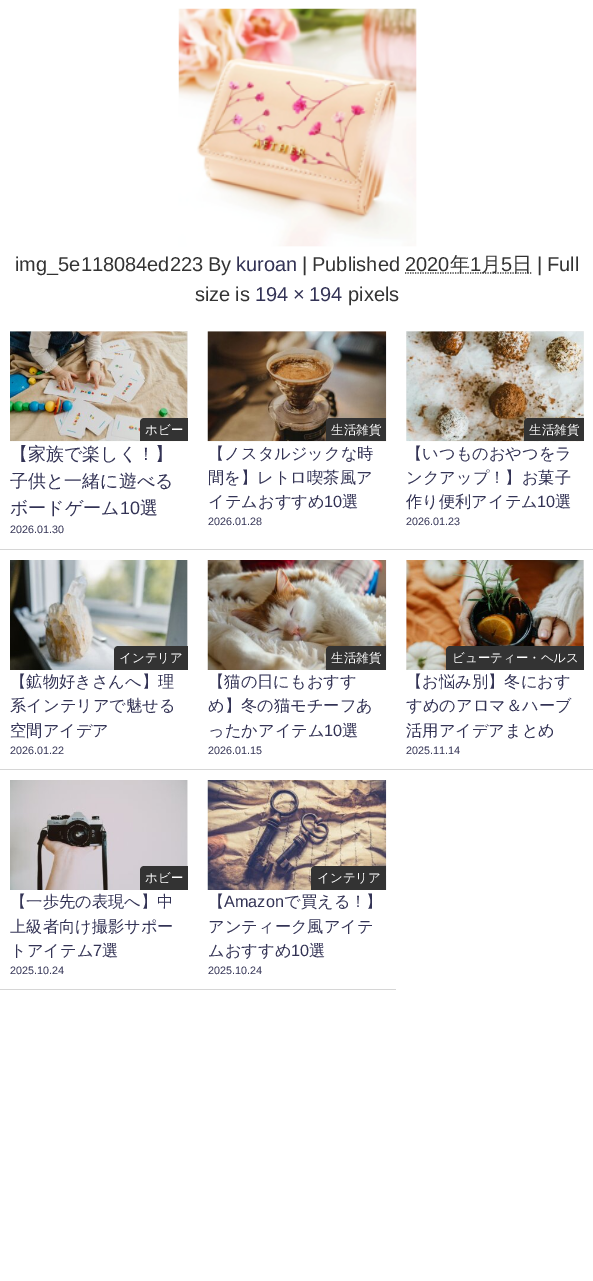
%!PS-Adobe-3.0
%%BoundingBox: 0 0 593 1281
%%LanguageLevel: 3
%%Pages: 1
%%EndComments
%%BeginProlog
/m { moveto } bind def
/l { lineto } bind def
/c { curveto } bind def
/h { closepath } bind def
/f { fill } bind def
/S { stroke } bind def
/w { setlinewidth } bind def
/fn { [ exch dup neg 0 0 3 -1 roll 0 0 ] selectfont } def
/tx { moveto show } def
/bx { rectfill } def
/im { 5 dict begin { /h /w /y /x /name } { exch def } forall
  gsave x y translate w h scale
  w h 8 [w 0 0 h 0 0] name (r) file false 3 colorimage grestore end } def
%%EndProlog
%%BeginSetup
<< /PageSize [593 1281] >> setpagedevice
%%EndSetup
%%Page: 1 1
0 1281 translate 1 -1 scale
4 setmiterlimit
1 setgray
0 0 593 1281 bx
(image0.raw) 178 8 239 239 im
/LiberationSans-Regular 20 fn
0.2 setgray
(img_5e118084ed223) 15 271 tx
(By) 208 271 tx
0.2 0.2 0.333 setrgbcolor
(kuroan) 236 271 tx
0.2 setgray
(|) 302 271 tx
(Published) 312 271 tx
(2020) 405 271 tx
1.2 w
[1.25 1.25] 0 setdash
405 273 m 532 273 l S
/WenQuanYiZenHei-Medium 20 fn
(年) 450 271 tx
/LiberationSans-Regular 20 fn
(1) 470 271 tx
/WenQuanYiZenHei-Medium 20 fn
(月) 481 271 tx
/LiberationSans-Regular 20 fn
(5) 501 271 tx
/WenQuanYiZenHei-Medium 20 fn
(日) 512 271 tx
/LiberationSans-Regular 20 fn
(|) 537 271 tx
(Full) 547 271 tx
195 301 m -1 0 32 (size is) widthshow
0.2 0.2 0.333 setrgbcolor
255 301 m -1 0 32 (194 × 194) widthshow
0.2 setgray
(pixels) 348 301 tx
0.839 setgray
0 549 593 1 bx
0.933 setgray
10 331 178 87 bx
(image1.raw) 10 331 178 111 im
0.2 setgray
144 418 m 188 418 l 188 441 l 140 441 l 140 422 l 140 420 142 418 144 418 c h f
/WenQuanYiZenHei-Medium 12.5 fn
1 setgray
(ホビー) 145 434 tx
/WenQuanYiZenHei-Medium 18 fn
0.2 0.2 0.333 setrgbcolor
(【家族で楽しく！】) 10 460 tx
(子供と一緒に遊べる) 10 487 tx
(ボードゲーム) 10 514 tx
/LiberationSans-Regular 18 fn
(10) 120 514 tx
/WenQuanYiZenHei-Medium 18 fn
(選) 140 514 tx
/LiberationSans-Regular 10.75 fn
(2026.01.30) 10 533 tx
0.933 setgray
208 331 178 1 bx
(image2.raw) 207 331 180 111 im
0.2 setgray
330 418 m 386 418 l 386 441 l 326 441 l 326 422 l 326 420 328 418 330 418 c h f
/WenQuanYiZenHei-Medium 12.5 fn
1 setgray
(生活雑貨) 331 434 tx
/WenQuanYiZenHei-Medium 16.25 fn
0.2 0.2 0.333 setrgbcolor
(【ノスタルジックな時) 208 459 tx
(間を】レトロ喫茶風ア) 208 483 tx
(イテムおすすめ) 208 507 tx
/LiberationSans-Regular 16.25 fn
(10) 324 507 tx
/WenQuanYiZenHei-Medium 16.25 fn
(選) 342 507 tx
/LiberationSans-Regular 10.75 fn
(2026.01.28) 208 525 tx
0.933 setgray
406 331 178 110 bx
(image3.raw) 406 331 178 111 im
0.2 setgray
528 418 m 584 418 l 584 441 l 524 441 l 524 422 l 524 420 526 418 528 418 c h f
/WenQuanYiZenHei-Medium 12.5 fn
1 setgray
(生活雑貨) 529 434 tx
/WenQuanYiZenHei-Medium 16.25 fn
0.2 0.2 0.333 setrgbcolor
(【いつものおやつをラ) 406 459 tx
(ンクアップ！】お菓子) 406 483 tx
(作り便利アイテム) 406 507 tx
/LiberationSans-Regular 16.25 fn
(10) 537 507 tx
/WenQuanYiZenHei-Medium 16.25 fn
(選) 555 507 tx
/LiberationSans-Regular 10.75 fn
(2026.01.23) 406 525 tx
0.839 setgray
0 769 593 1 bx
0.933 setgray
187 560 1 86 bx
(image4.raw) 10 560 178 110 im
0.2 setgray
118 646 m 188 646 l 188 670 l 114 670 l 114 650 l 114 648 116 646 118 646 c h f
/WenQuanYiZenHei-Medium 12.5 fn
1 setgray
(インテリア) 119 662 tx
/WenQuanYiZenHei-Medium 16.25 fn
0.2 0.2 0.333 setrgbcolor
(【鉱物好きさんへ】理) 10 687 tx
(系インテリアで魅せる) 10 711 tx
(空間アイデア) 10 736 tx
/LiberationSans-Regular 10.75 fn
(2026.01.22) 10 754 tx
(image5.raw) 207 560 180 110 im
0.2 setgray
330 646 m 386 646 l 386 670 l 326 670 l 326 650 l 326 648 328 646 330 646 c h f
/WenQuanYiZenHei-Medium 12.5 fn
1 setgray
(生活雑貨) 331 662 tx
/WenQuanYiZenHei-Medium 16.25 fn
0.2 0.2 0.333 setrgbcolor
(【猫の日にもおすす) 208 687 tx
(め】冬の猫モチーフあ) 208 711 tx
(ったかアイテム) 208 736 tx
/LiberationSans-Regular 16.25 fn
(10) 324 736 tx
/WenQuanYiZenHei-Medium 16.25 fn
(選) 342 736 tx
/LiberationSans-Regular 10.75 fn
(2026.01.15) 208 754 tx
0.933 setgray
406 560 178 110 bx
(image6.raw) 406 560 178 110 im
0.2 setgray
450 646 m 584 646 l 584 670 l 446 670 l 446 650 l 446 648 448 646 450 646 c h f
/WenQuanYiZenHei-Medium 12.5 fn
1 setgray
(ビューティー・ヘルス) 452 662 tx
/WenQuanYiZenHei-Medium 16.25 fn
0.2 0.2 0.333 setrgbcolor
(【お悩み別】冬におす) 406 687 tx
(すめのアロマ＆ハーブ) 406 711 tx
(活用アイデアまとめ) 406 736 tx
/LiberationSans-Regular 10.75 fn
(2025.11.14) 406 754 tx
0.839 setgray
0 989 396 1 bx
0.933 setgray
187 780 1 86 bx
(image7.raw) 10 780 178 110 im
0.2 setgray
144 866 m 188 866 l 188 890 l 140 890 l 140 870 l 140 868 142 866 144 866 c h f
/WenQuanYiZenHei-Medium 12.5 fn
1 setgray
(ホビー) 145 882 tx
/WenQuanYiZenHei-Medium 16.25 fn
0.2 0.2 0.333 setrgbcolor
(【一歩先の表現へ】中) 10 907 tx
(上級者向け撮影サポー) 10 932 tx
(トアイテム) 10 956 tx
/LiberationSans-Regular 16.25 fn
(7) 93 956 tx
/WenQuanYiZenHei-Medium 16.25 fn
(選) 102 956 tx
/LiberationSans-Regular 10.75 fn
(2025.10.24) 10 974 tx
(image8.raw) 207 780 180 110 im
0.2 setgray
315 866 m 386 866 l 386 890 l 311 890 l 311 870 l 311 868 313 866 315 866 c h f
/WenQuanYiZenHei-Medium 12.5 fn
1 setgray
(インテリア) 317 882 tx
/WenQuanYiZenHei-Medium 16.25 fn
0.2 0.2 0.333 setrgbcolor
(【) 208 907 tx
/LiberationSans-Regular 16.25 fn
(Amazon) 224 907 tx
/WenQuanYiZenHei-Medium 16.25 fn
(で買える！】) 284 907 tx
(アンティーク風アイテ) 208 932 tx
(ムおすすめ) 208 956 tx
/LiberationSans-Regular 16.25 fn
(10) 291 956 tx
/WenQuanYiZenHei-Medium 16.25 fn
(選) 309 956 tx
/LiberationSans-Regular 10.75 fn
(2025.10.24) 208 974 tx
showpage
%%EOF
